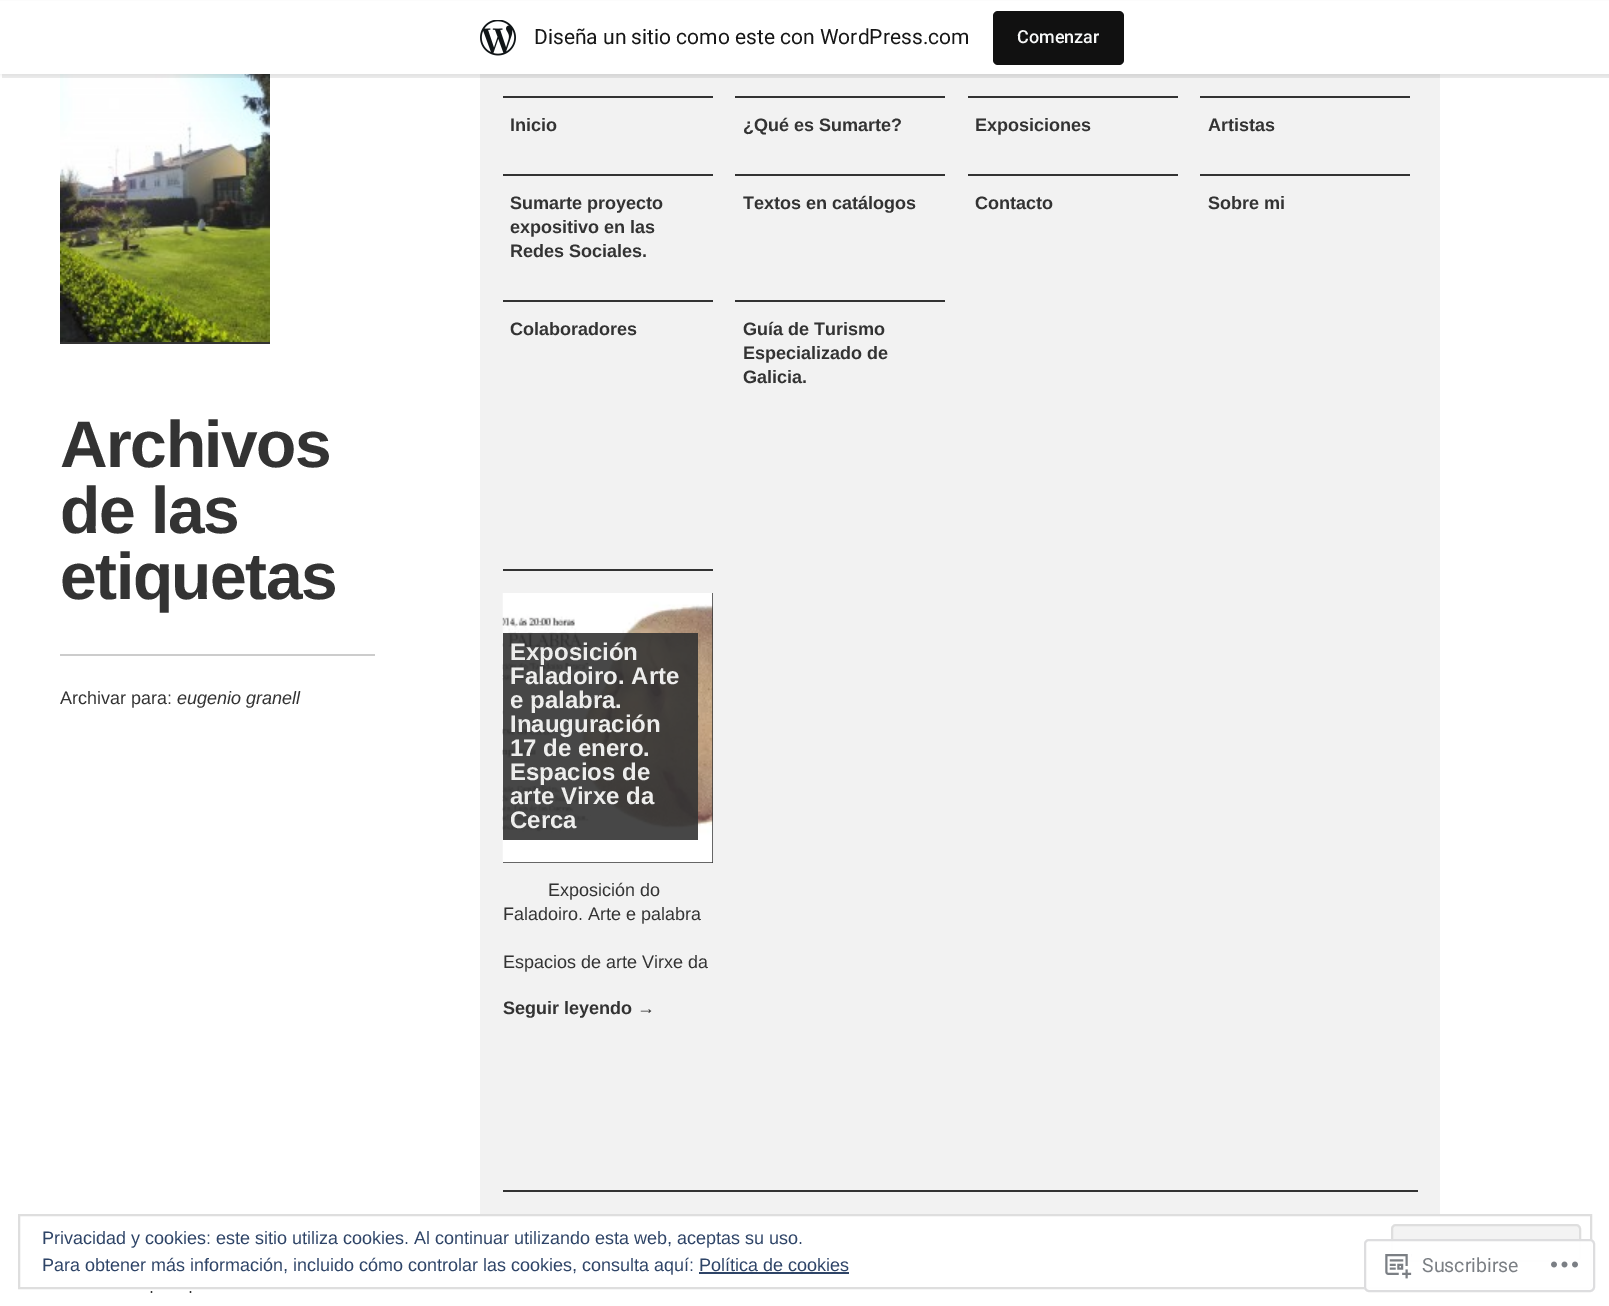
%!PS-Adobe-3.0
%%BoundingBox: 0 0 1609 1306
%%LanguageLevel: 3
%%Pages: 1
%%EndComments
%%BeginProlog
/m { moveto } bind def
/l { lineto } bind def
/h { closepath } bind def
/f { fill } bind def
/S { stroke } bind def
/q { gsave } bind def
/Q { grestore } bind def
/w { setlinewidth } bind def
/fn { [ exch dup neg 0 0 3 -1 roll 0 0 ] selectfont } def
/tx { moveto show } def
/bx { rectfill } def
/al { dup .setfillconstantalpha .setstrokeconstantalpha } def
/rr { 5 dict begin { /r /h /w /y /x } { exch def } forall
  x r add y moveto x w add y 2 copy h add r arct x w add y h add x 1 index r arct
  x y h add x y r arct x y 2 copy exch w add exch r arct closepath end } def
/sh { 12 dict begin { /a /b /q /h /w /y /x } { exch def } forall gsave /was 0 def
  9 -2 -9 { dup b mul 4 div /e exch def 1 sub .425 mul 2.718 exch exp 1 add a .99 .min exch div /now exch def
    1 1 now sub 1 was sub div sub al /was now def
    w h .min e 2 mul add 0 gt { x e sub y e sub w e 2 mul add h e 2 mul add
      q e add b .6 mul add w h .min 2 div e add .min 0 .max rr fill } if } for grestore end } def
/im { 5 dict begin { /h /w /y /x /name } { exch def } forall
  gsave x y translate w h scale
  w h 8 [w 0 0 h 0 0] name (r) file false 3 colorimage grestore end } def
%%EndProlog
%%BeginSetup
<< /PageSize [1609 1306] /PageUsesTransparency true >> setpagedevice
%%EndSetup
%%Page: 1 1
0 .pushpdf14devicefilter
0 1306 translate 1 -1 scale
4 setmiterlimit
1 setgray
0 0 1609 1306 bx
0.949 setgray
480 74 960 1140 bx
(image1.raw) 60 74 210 268 im
0 setgray
0 2 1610 73 0 1.5 0.05 sh
0.08 al
2 74 m 2 78 l 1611 78 l 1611 5 l 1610 5 l 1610 74 l h f
1 al
1 setgray
0 1 1609 73 bx
(image0.raw) 480 20 36 36 im
/Roboto-Regular 21 fn
0.09 setgray
(Diseña un sitio como este con WordPress.com) 534 44 tx
0.067 setgray
993 11 131 54 5 rr f
/Roboto-Medium 18 fn
0.965 0.969 0.969 setrgbcolor
(Comenzar) 1017 43 tx
0.2 setgray
60 342 210 2 bx
0.8 setgray
60 654 315 2 bx
/LiberationSans-Bold 66 fn
0.2 setgray
60 467 m -1.5 0 (Archivos) ashow
60 533 m -1.5 0 (de las) ashow
60 599 m -1.5 0 (etiquetas) ashow
/LiberationSans-Regular 18 fn
(Archivar para:) 60 704 tx
/LiberationSans-Italic 18 fn
(eugenio granell) 177 704 tx
503 96 210 2 bx
/LiberationSans-Bold 18 fn
(Inicio) 510 131 tx
735 96 210 2 bx
(¿Qué es Sumarte?) 743 131 tx
968 96 210 2 bx
(Exposiciones) 975 131 tx
1200 96 210 2 bx
(Artistas) 1208 131 tx
503 174 210 2 bx
(Sumarte proyecto) 510 209 tx
(expositivo en las) 510 233 tx
(Redes Sociales.) 510 257 tx
735 174 210 2 bx
(Textos en catálogos) 743 209 tx
968 174 210 2 bx
(Contacto) 975 209 tx
1200 174 210 2 bx
(Sobre mi) 1208 209 tx
503 300 210 2 bx
(Colaboradores) 510 335 tx
735 300 210 2 bx
(Guía de Turismo) 743 335 tx
(Especializado de) 743 359 tx
(Galicia.) 743 383 tx
503 569 210 2 bx
503 593 210 270 bx
(image2.raw) 502 593 211 270 im
0.9 al
503 633 195 207 bx
/LiberationSans-Bold 24 fn
1 al
0.929 0.929 0.925 setrgbcolor
(Exposición) 510 660 tx
(Faladoiro. Arte) 510 684 tx
(e palabra.) 510 708 tx
(Inauguración) 510 732 tx
(17 de enero.) 510 756 tx
(Espacios de) 510 780 tx
(arte Virxe da) 510 804 tx
(Cerca) 510 828 tx
/LiberationSans-Regular 18 fn
0.2 setgray
(Exposición do) 548 896 tx
(Faladoiro. Arte e palabra) 503 920 tx
(Espacios de arte Virxe da) 503 968 tx
/LiberationSans-Bold 18 fn
(Seguir leyendo →) 503 1014 tx
503 1190 915 2 bx
/LiberationSans-Regular 18 fn
(.) 149 1293 tx
(.) 188 1293 tx
0.871 setgray
2 w
19 1215 1572 73 rectstroke
0.18 0.267 0.404 setrgbcolor
(Privacidad y cookies: este sitio utiliza cookies. Al continuar utilizando esta web, aceptas su uso.) 42 1244 tx
0.953 setgray
1392 1225 188 36 4 rr q f Q
0.871 setgray
S
0.18 0.267 0.404 setrgbcolor
(Para obtener más información, incluido cómo controlar las cookies, consulta aquí: Política de cookies) 42 1271 tx
699 1272 150 2 bx
0.98 al
1 setgray
1364 1239 231 53 5 rr f
0.863 0.863 0.871 setrgbcolor
1365 1240 229 51 4 rr S
1 al
(image3.raw) 1385 1254 27 25 im
/Roboto-Regular 19.5 fn
0.482 0.498 0.518 setrgbcolor
(Suscribirse) 1422 1272 tx
(image4.raw) 1551 1261 27 7 im
.poppdf14devicefilter showpage
%%EOF
